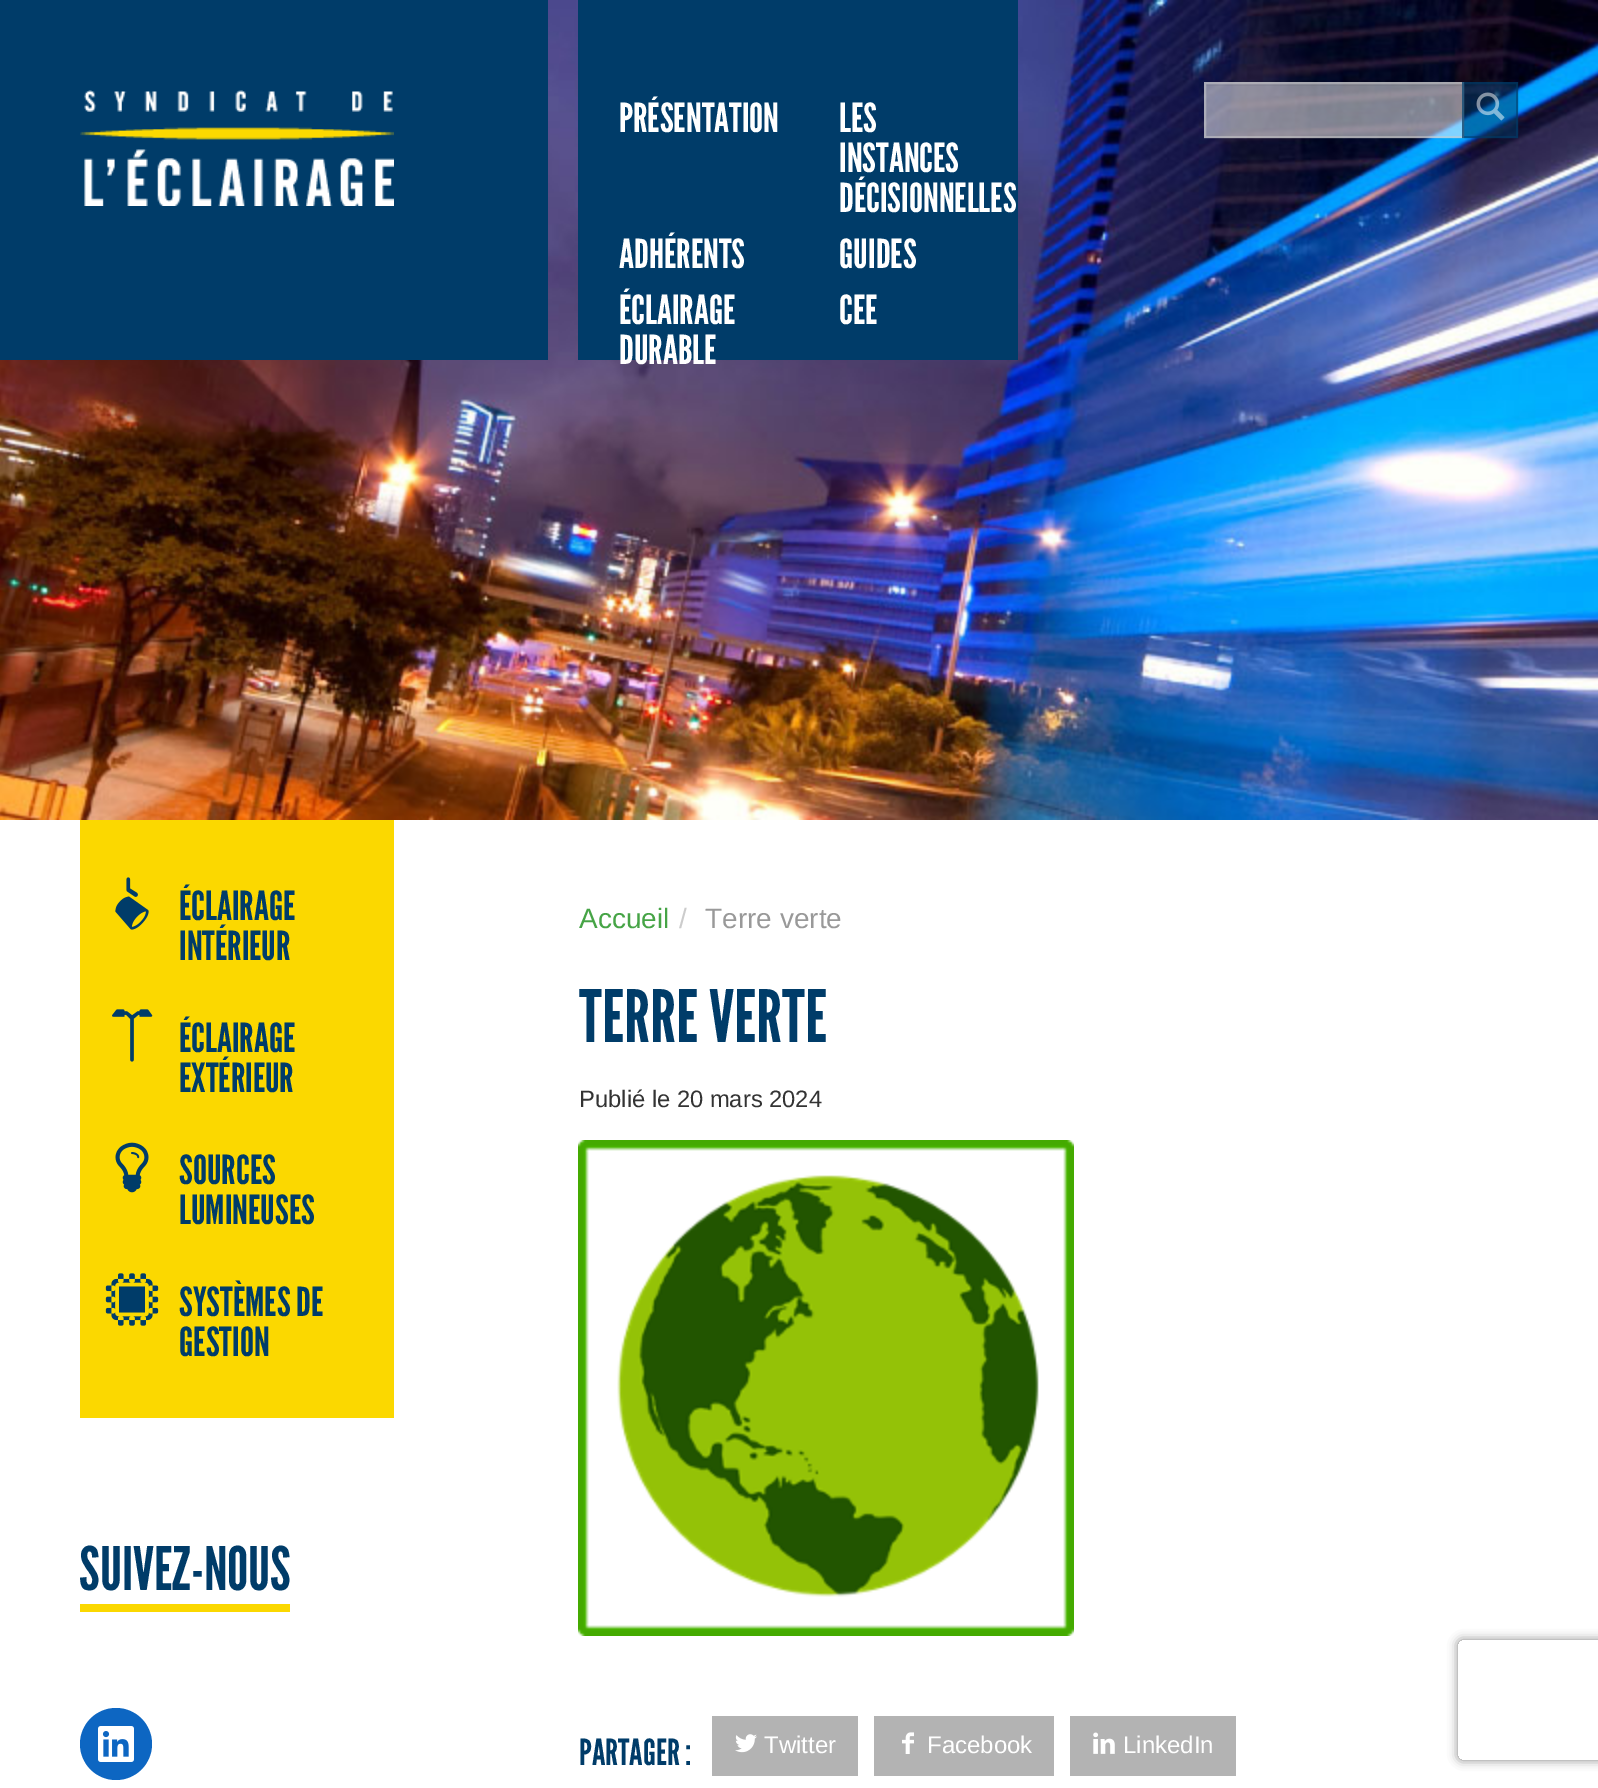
%!PS-Adobe-3.0
%%BoundingBox: 0 0 1598 1788
%%LanguageLevel: 3
%%Pages: 1
%%EndComments
%%BeginProlog
/m { moveto } bind def
/l { lineto } bind def
/c { curveto } bind def
/h { closepath } bind def
/f { fill } bind def
/q { gsave } bind def
/Q { grestore } bind def
/w { setlinewidth } bind def
/fn { [ exch dup neg 0 0 3 -1 roll 0 0 ] selectfont } def
/tx { moveto show } def
/bx { rectfill } def
/al { dup .setfillconstantalpha .setstrokeconstantalpha } def
/ci { newpath 0 360 arc closepath } def
/rr { 5 dict begin { /r /h /w /y /x } { exch def } forall
  x r add y moveto x w add y 2 copy h add r arct x w add y h add x 1 index r arct
  x y h add x y r arct x y 2 copy exch w add exch r arct closepath end } def
/sh { 12 dict begin { /a /b /q /h /w /y /x } { exch def } forall gsave /was 0 def
  9 -2 -9 { dup b mul 4 div /e exch def 1 sub .425 mul 2.718 exch exp 1 add a .99 .min exch div /now exch def
    1 1 now sub 1 was sub div sub al /was now def
    w h .min e 2 mul add 0 gt { x e sub y e sub w e 2 mul add h e 2 mul add
      q e add b .6 mul add w h .min 2 div e add .min 0 .max rr fill } if } for grestore end } def
/im { 5 dict begin { /h /w /y /x /name } { exch def } forall
  gsave x y translate w h scale
  w h 8 [w 0 0 h 0 0] name (r) file false 3 colorimage grestore end } def
%%EndProlog
%%BeginSetup
<< /PageSize [1598 1788] /PageUsesTransparency true >> setpagedevice
%%EndSetup
%%Page: 1 1
0 .pushpdf14devicefilter
0 1788 translate 1 -1 scale
4 setmiterlimit
1 setgray
0 0 1598 1788 bx
(image0.raw) 0 0 1598 820 im
0 0.235 0.412 setrgbcolor
0 0 548 360 bx
(image1.raw) 80 90 314 116 im
578 0 440 360 bx
/LeagueGothic-Regular 40 fn
1 setgray
(PRÉSENTATION) 619 132 tx
(LES) 839 132 tx
(INSTANCES) 839 172 tx
(DÉCISIONNELLES) 839 212 tx
(ADHÉRENTS) 619 268 tx
(GUIDES) 839 268 tx
(ÉCLAIRAGE) 619 324 tx
(DURABLE) 619 364 tx
(CEE) 839 324 tx
0.5 al
1204 82 260 56 bx
0.04 al
0 setgray
1206 84 256 2 bx
0.5 al
0.8 setgray
2 w
1205 83 258 54 rectstroke
0 0.235 0.412 setrgbcolor
1462 82 56 56 bx
1463 83 54 54 rectstroke
1 al
(image2.raw) 1476 92 29 29 im
0.984 0.847 0 setrgbcolor
80 820 314 598 bx
(image3.raw) 115 877 34 53 im
0 0.235 0.412 setrgbcolor
(ÉCLAIRAGE) 179 920 tx
(INTÉRIEUR) 179 960 tx
(image4.raw) 112 1009 41 53 im
(ÉCLAIRAGE) 179 1052 tx
(EXTÉRIEUR) 179 1092 tx
(image5.raw) 115 1142 34 51 im
(SOURCES) 179 1184 tx
(LUMINEUSES) 179 1224 tx
(image6.raw) 105 1273 54 53 im
(SYSTÈMES DE) 179 1316 tx
(GESTION) 179 1356 tx
0.984 0.847 0 setrgbcolor
80 1604 210 8 bx
/LeagueGothic-Regular 60 fn
0 0.235 0.412 setrgbcolor
(SUIVEZ-NOUS) 79 1590 tx
0.051 0.4 0.761 setrgbcolor
116 1744 36 ci f
(image7.raw) 98 1726 36 36 im
/LiberationSans-Regular 28 fn
0.275 0.643 0.275 setrgbcolor
(Accueil) 579 928 tx
0.8 setgray
(/) 679 928 tx
0.6 setgray
(Terre verte) 705 928 tx
/LeagueGothic-Regular 72 fn
0 0.235 0.412 setrgbcolor
(TERRE VERTE) 579 1042 tx
/LiberationSans-Regular 23.75 fn
0.2 setgray
(Publié le 20 mars 2024) 579 1107 tx
(image8.raw) 578 1140 496 496 im
/LeagueGothic-Regular 36 fn
0 0.235 0.412 setrgbcolor
(PARTAGER :) 579 1765 tx
0.702 setgray
712 1716 146 60 bx
(image9.raw) 735 1734 22 19 im
/LiberationSans-Regular 24 fn
1 setgray
(Twitter) 764 1753 tx
0.702 setgray
874 1716 180 60 bx
(image10.raw) 902 1732 12 22 im
1 setgray
(Facebook) 927 1753 tx
0.702 setgray
1070 1716 166 60 bx
(image11.raw) 1093 1732 22 22 im
1 setgray
(LinkedIn) 1123 1753 tx
q
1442 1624 m 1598 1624 l 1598 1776 l 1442 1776 l h 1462 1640 m 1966 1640 l 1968 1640 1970 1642 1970 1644 c 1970 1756 l 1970 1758 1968 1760 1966 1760 c 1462 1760 l 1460 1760 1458 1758 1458 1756 c 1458 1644 l 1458 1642 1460 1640 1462 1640 c h eoclip newpath
0.502 setgray
1458 1640 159 120 4 5 1 sh
Q
.poppdf14devicefilter showpage
%%EOF
